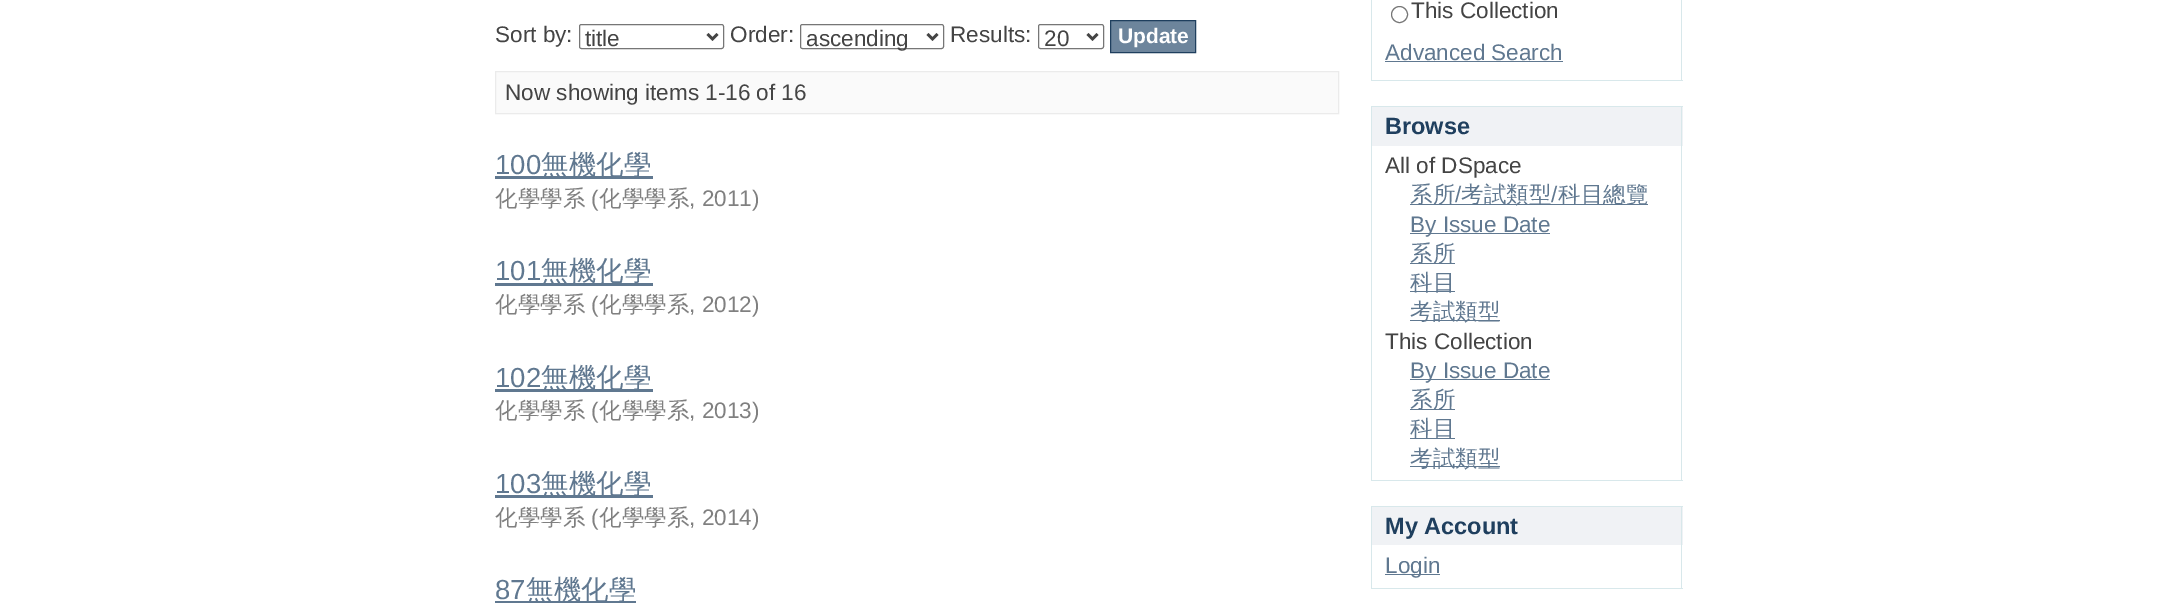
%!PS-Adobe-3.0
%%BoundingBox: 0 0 2177 603
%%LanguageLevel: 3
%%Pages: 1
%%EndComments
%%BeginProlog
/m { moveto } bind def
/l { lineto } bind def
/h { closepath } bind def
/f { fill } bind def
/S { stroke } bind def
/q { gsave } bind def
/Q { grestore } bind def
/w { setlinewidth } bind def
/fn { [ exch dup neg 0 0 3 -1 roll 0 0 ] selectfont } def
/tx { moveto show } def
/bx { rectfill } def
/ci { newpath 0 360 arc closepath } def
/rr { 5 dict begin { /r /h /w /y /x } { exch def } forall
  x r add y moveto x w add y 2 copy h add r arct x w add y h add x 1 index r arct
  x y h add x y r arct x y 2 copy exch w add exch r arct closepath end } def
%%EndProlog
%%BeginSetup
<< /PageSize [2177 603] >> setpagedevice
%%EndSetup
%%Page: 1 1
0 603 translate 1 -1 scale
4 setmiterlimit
1 setgray
0 0 2177 603 bx
/LiberationSans-Regular 22.5 fn
0.267 setgray
(Sort by:) 495 42 tx
0.463 setgray
579.5 24.5 144 24 2 rr S
0.267 setgray
2.5 w
707.5 34 m 712.5 39 l 717.5 34 l S
(title) 585 46 tx
(Order:) 730 42 tx
0.463 setgray
1 w
800.5 24.5 143 24 2 rr S
0.267 setgray
2.5 w
927.5 34 m 932.5 39 l 937.5 34 l S
(ascending) 806 46 tx
(Results:) 950 42 tx
0.463 setgray
1 w
1038.5 24.5 65 24 2 rr S
0.267 setgray
2.5 w
1087.5 34 m 1092.5 39 l 1097.5 34 l S
(20) 1044 46 tx
0.427 0.522 0.612 setrgbcolor
1110.5 20.5 m 1195.5 20.5 l 1195.5 52.5 l 1110.5 52.5 l h q f Q
0.122 0.247 0.369 setrgbcolor
1 w
S
/LiberationSans-Bold 21 fn
1 setgray
(Update) 1118 43 tx
0.98 setgray
495.5 71.5 m 1338.5 71.5 l 1338.5 113.5 l 495.5 113.5 l h q f Q
0.922 setgray
S
/LiberationSans-Regular 22.5 fn
0.267 setgray
(Now showing items 1-16 of 16) 505 100 tx
/LiberationSans-Regular 27.5 fn
0.376 0.471 0.565 setrgbcolor
(100) 495 174 tx
495 176 158 3 bx
/WenQuanYiZenHei-Medium 27.5 fn
(無機化學) 541 174 tx
/WenQuanYiZenHei-Medium 22.5 fn
0.502 setgray
(化學學系) 495 206 tx
/LiberationSans-Regular 22.5 fn
(\() 591 206 tx
/WenQuanYiZenHei-Medium 22.5 fn
(化學學系) 599 206 tx
/LiberationSans-Regular 22.5 fn
(, 2011\)) 689 206 tx
/LiberationSans-Regular 27.5 fn
0.376 0.471 0.565 setrgbcolor
(101) 495 280 tx
495 283 158 3 bx
/WenQuanYiZenHei-Medium 27.5 fn
(無機化學) 541 280 tx
/WenQuanYiZenHei-Medium 22.5 fn
0.502 setgray
(化學學系) 495 312 tx
/LiberationSans-Regular 22.5 fn
(\() 591 312 tx
/WenQuanYiZenHei-Medium 22.5 fn
(化學學系) 599 312 tx
/LiberationSans-Regular 22.5 fn
(, 2012\)) 689 312 tx
/LiberationSans-Regular 27.5 fn
0.376 0.471 0.565 setrgbcolor
(102) 495 387 tx
495 389 158 3 bx
/WenQuanYiZenHei-Medium 27.5 fn
(無機化學) 541 387 tx
/WenQuanYiZenHei-Medium 22.5 fn
0.502 setgray
(化學學系) 495 418 tx
/LiberationSans-Regular 22.5 fn
(\() 591 418 tx
/WenQuanYiZenHei-Medium 22.5 fn
(化學學系) 599 418 tx
/LiberationSans-Regular 22.5 fn
(, 2013\)) 689 418 tx
/LiberationSans-Regular 27.5 fn
0.376 0.471 0.565 setrgbcolor
(103) 495 493 tx
495 495 158 3 bx
/WenQuanYiZenHei-Medium 27.5 fn
(無機化學) 541 493 tx
/WenQuanYiZenHei-Medium 22.5 fn
0.502 setgray
(化學學系) 495 525 tx
/LiberationSans-Regular 22.5 fn
(\() 591 525 tx
/WenQuanYiZenHei-Medium 22.5 fn
(化學學系) 599 525 tx
/LiberationSans-Regular 22.5 fn
(, 2014\)) 689 525 tx
/LiberationSans-Regular 27.5 fn
0.376 0.471 0.565 setrgbcolor
(87) 495 599 tx
495 601 141 2 bx
/WenQuanYiZenHei-Medium 27.5 fn
(無機化學) 526 599 tx
0.847 0.91 0.922 setrgbcolor
1681 0 1 81 bx
1371 80 312 1 bx
1371 0 1 81 bx
0.463 setgray
1399.5 14.5 8 ci S
/LiberationSans-Regular 22.5 fn
0.267 setgray
(This Collection) 1411 18 tx
0.376 0.471 0.565 setrgbcolor
(Advanced Search) 1385 60 tx
1385 61 178 1 bx
0.941 0.949 0.961 setrgbcolor
1372 107 311 39 bx
0.847 0.91 0.922 setrgbcolor
1371 106 312 1 bx
1681 106 1 375 bx
1371 106 1 40 bx
/LiberationSans-Bold 23.5 fn
0.122 0.247 0.369 setrgbcolor
(Browse) 1385 134 tx
0.847 0.91 0.922 setrgbcolor
1371 480 312 1 bx
1371 146 1 335 bx
/LiberationSans-Regular 22.5 fn
0.267 setgray
(All of DSpace) 1385 173 tx
0.376 0.471 0.565 setrgbcolor
1410 204 238 1 bx
/WenQuanYiZenHei-Medium 22.5 fn
(系所) 1410 202 tx
/LiberationSans-Regular 22.5 fn
(/) 1455 202 tx
/WenQuanYiZenHei-Medium 22.5 fn
(考試類型) 1461 202 tx
/LiberationSans-Regular 22.5 fn
(/) 1551 202 tx
/WenQuanYiZenHei-Medium 22.5 fn
(科目總覽) 1558 202 tx
1410 233 140 1 bx
/LiberationSans-Regular 22.5 fn
(By Issue Date) 1410 232 tx
1410 263 45 1 bx
/WenQuanYiZenHei-Medium 22.5 fn
(系所) 1410 261 tx
1410 291 45 1 bx
(科目) 1410 290 tx
1410 320 90 1 bx
(考試類型) 1410 319 tx
/LiberationSans-Regular 22.5 fn
0.267 setgray
(This Collection) 1385 349 tx
0.376 0.471 0.565 setrgbcolor
1410 379 140 1 bx
(By Issue Date) 1410 378 tx
1410 409 45 1 bx
/WenQuanYiZenHei-Medium 22.5 fn
(系所) 1410 407 tx
1410 438 45 1 bx
(科目) 1410 436 tx
1410 466 90 1 bx
(考試類型) 1410 466 tx
0.941 0.949 0.961 setrgbcolor
1372 507 311 38 bx
0.847 0.91 0.922 setrgbcolor
1371 506 312 1 bx
1681 506 1 83 bx
1371 506 1 39 bx
/LiberationSans-Bold 23.5 fn
0.122 0.247 0.369 setrgbcolor
(My Account) 1385 534 tx
0.847 0.91 0.922 setrgbcolor
1371 588 312 1 bx
1371 545 1 44 bx
0.376 0.471 0.565 setrgbcolor
1385 574 55 1 bx
/LiberationSans-Regular 22.5 fn
(Login) 1385 573 tx
showpage
%%EOF
